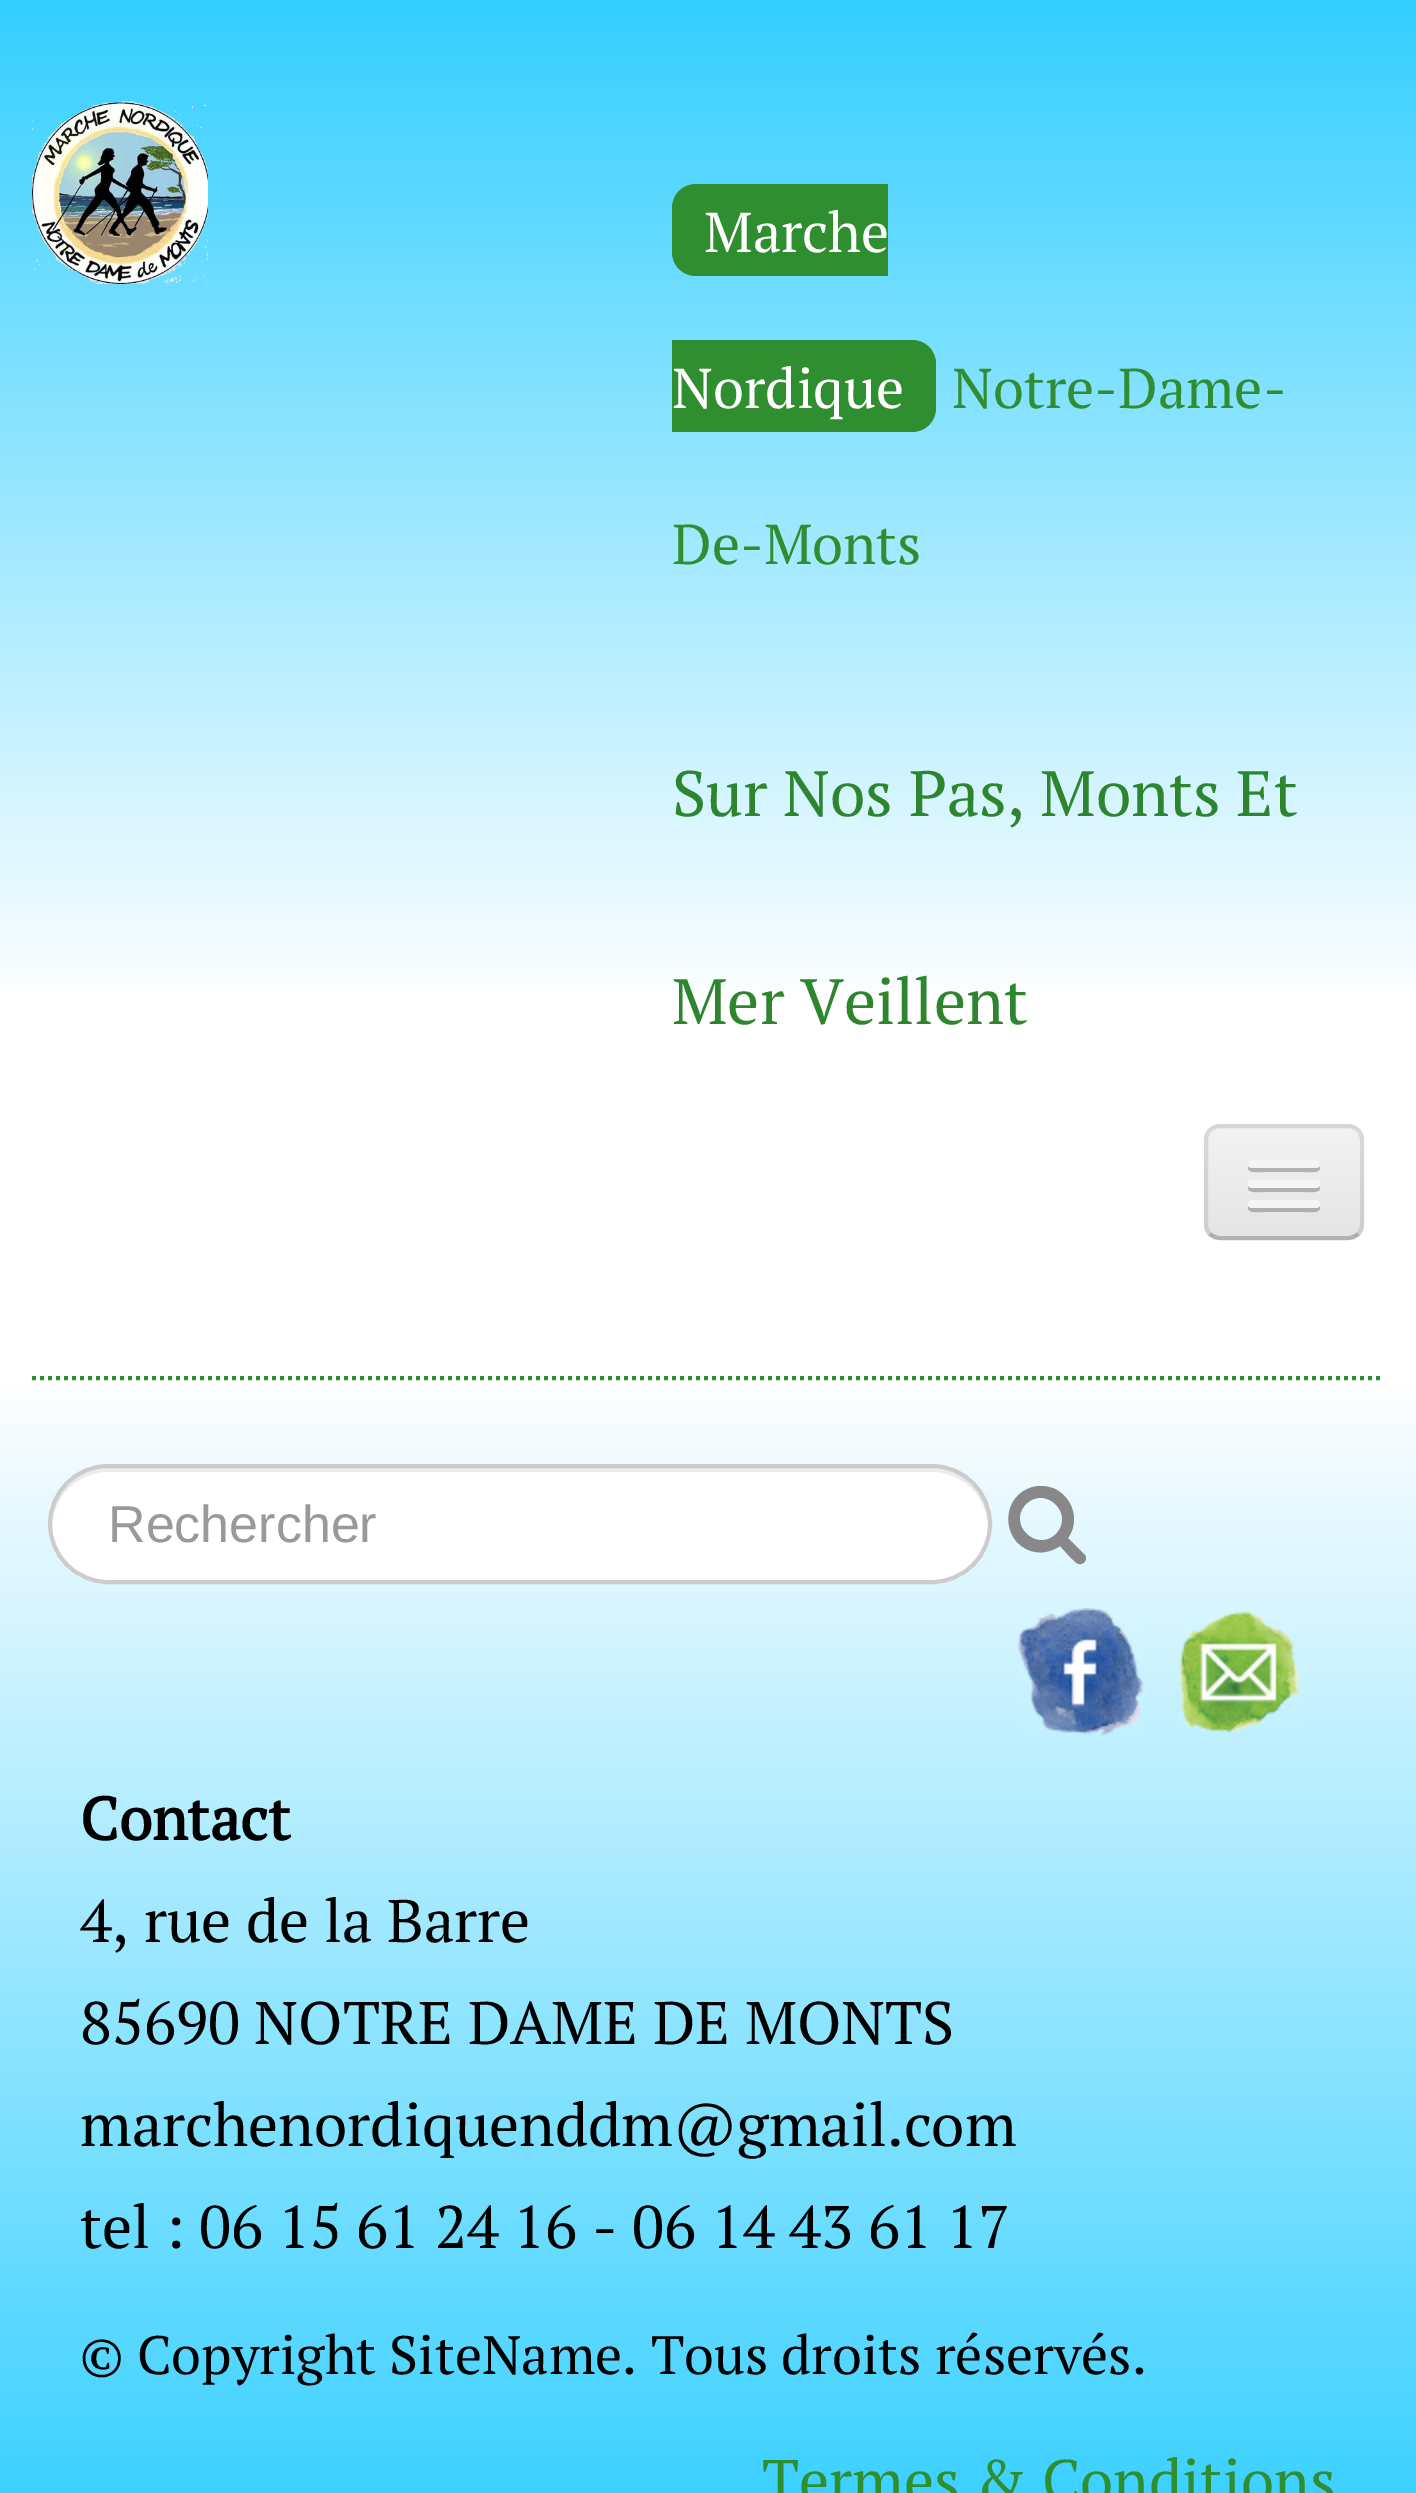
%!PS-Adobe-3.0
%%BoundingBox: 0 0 1416 2493
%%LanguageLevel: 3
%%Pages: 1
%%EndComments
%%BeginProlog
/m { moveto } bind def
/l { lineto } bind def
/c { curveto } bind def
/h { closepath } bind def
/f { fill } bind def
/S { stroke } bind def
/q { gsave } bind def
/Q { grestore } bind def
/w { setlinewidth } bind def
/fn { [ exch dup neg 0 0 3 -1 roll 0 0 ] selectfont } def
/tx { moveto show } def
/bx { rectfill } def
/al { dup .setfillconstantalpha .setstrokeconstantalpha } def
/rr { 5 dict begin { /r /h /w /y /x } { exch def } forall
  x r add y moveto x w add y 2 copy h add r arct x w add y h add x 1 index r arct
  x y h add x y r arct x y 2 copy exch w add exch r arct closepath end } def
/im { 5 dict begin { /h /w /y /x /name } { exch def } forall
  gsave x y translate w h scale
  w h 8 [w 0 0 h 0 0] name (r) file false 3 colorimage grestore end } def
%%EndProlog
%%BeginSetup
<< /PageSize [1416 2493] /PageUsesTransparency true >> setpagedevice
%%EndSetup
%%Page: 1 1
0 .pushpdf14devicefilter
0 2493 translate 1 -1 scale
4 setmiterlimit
1 setgray
0 0 1416 2493 bx
q 0 0 m 1416 0 l 1416 992 l 0 992 l h clip newpath
<< /ShadingType 2 /ColorSpace /DeviceRGB /Coords [708 0 708 1256] /Extend [true true] /Function << /FunctionType 3 /Domain [0 1] /Functions [<< /FunctionType 2 /Domain [0 1] /C0 [0.2 0.812 1] /C1 [1 1 1] /N 1 >> << /FunctionType 2 /Domain [0 1] /C0 [1 1 1] /C1 [1 1 1] /N 1 >>] /Bounds [0.8] /Encode [0 1 0 1] >> >> shfill Q
(image0.raw) 32 100 176 184 im
0.184 0.557 0.184 setrgbcolor
696 184 m 888 184 l 888 276 l 696 276 l 682.5 276 672 265.5 672 252 c 672 208 l 672 194.5 682.5 184 696 184 c h f
/PTSerif-Regular 56 fn
1 setgray
(Marche) 704 252 tx
0.184 0.557 0.184 setrgbcolor
672 340 m 912 340 l 925.5 340 936 350.5 936 364 c 936 408 l 936 421.5 925.5 432 912 432 c 672 432 l h f
1 setgray
(Nordique) 672 408 tx
0.184 0.557 0.184 setrgbcolor
(Notre-Dame-) 952 408 tx
(De-Monts) 672 564 tx
/PTSerif-Regular 64 fn
0.176 0.525 0.18 setrgbcolor
(Sur Nos Pas, Monts Et) 672 816 tx
(Mer Veillent) 672 1024 tx
0.929 setgray
1204 1124 160 116 16 rr f
q
1204 1124 160 116 16 rr clip newpath
q 1204 1128 m 1364 1128 l 1364 1236 l 1204 1236 l h clip newpath
<< /ShadingType 2 /ColorSpace /DeviceRGB /Coords [1284 1128 1284 1236] /Extend [true true] /Function << /FunctionType 2 /Domain [0 1] /C0 [0.949 0.949 0.949] /C1 [0.898 0.898 0.898] /N 1 >> >> shfill Q
Q
0.25 al
0 setgray
4 w
1358 1234 m 1355.5 1236.5 1351.5 1238 1348 1238 c 1220 1238 l 1216.5 1238 1212.5 1236.5 1210 1234 c S
0.1 al
1210 1234 m 1207.5 1231.5 1206 1227.5 1206 1224 c 1206 1140 l 1206 1136.5 1207.5 1132.5 1210 1130 c 1212.5 1127.5 1216.5 1126 1220 1126 c 1348 1126 l 1351.5 1126 1355.5 1127.5 1358 1130 c 1360.5 1132.5 1362 1136.5 1362 1140 c 1362 1224 l 1362 1227.5 1360.5 1231.5 1358 1234 c S
1 al
0.698 setgray
1249 1166 m 1244 1174 1262 1172 1263 1172 c 1305 1172 l 1306 1172 1324 1174 1319 1166 c 1319 1167 1317 1168 1316 1168 c 1252 1168 l 1251 1168 1249 1167 1249 1166 c h f
0.961 setgray
1248 1160 72 8 4 rr f
0.69 setgray
1249 1186 m 1244 1194 1262 1192 1263 1192 c 1305 1192 l 1306 1192 1324 1194 1319 1186 c 1319 1187 1317 1188 1316 1188 c 1252 1188 l 1251 1188 1249 1187 1249 1186 c h f
0.961 setgray
1248 1180 72 8 4 rr f
0.682 setgray
1249 1206 m 1244 1214 1262 1212 1263 1212 c 1305 1212 l 1306 1212 1324 1214 1319 1206 c 1319 1207 1317 1208 1316 1208 c 1252 1208 l 1251 1208 1249 1207 1249 1206 c h f
0.961 setgray
1248 1200 72 8 4 rr f
q 0 1390 m 1416 1390 l 1416 2493 l 0 2493 l h clip newpath
<< /ShadingType 2 /ColorSpace /DeviceRGB /Coords [708 1376 708 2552] /Extend [true true] /Function << /FunctionType 2 /Domain [0 1] /C0 [1 1 1] /C1 [0.2 0.812 1] /N 1 >> >> shfill Q
0.184 0.557 0.184 setrgbcolor
[4 4] 0 setdash
32 1378 m 1384 1378 l S
1 setgray
48 1464 944 120 60 rr f
0.925 setgray
108 1472 m 932 1472 l 962 1472 987 1496 988 1526 c 989 1494 964 1468 932 1468 c 108 1468 l 76 1468 51 1494 52 1526 c 53 1496 78 1472 108 1472 c h f
0.8 setgray
[] 0 setdash
50 1466 940 116 58 rr S
/LiberationSans-Regular 52 fn
0.6 setgray
(Rechercher) 108 1542 tx
0.533 setgray
1056 1534 m 1075 1514 1046 1485 1026 1504 c 1007 1524 1036 1553 1056 1534 c h 1086 1558 m 1086 1560 1085 1562 1083 1563 c 1078 1567 1074 1560 1070 1557 c 1060 1546 l 1051 1552 1041 1554 1031 1551 c 1000 1541 1001 1495 1033 1487 c 1040 1485 1048 1486 1055 1489 c 1073 1498 1080 1521 1068 1538 c 1084 1554 l 1085 1555 1086 1556 1086 1558 c h f
(image1.raw) 1017 1608 127 128 im
(image2.raw) 1179 1611 122 122 im
/PTSerif-Bold 60 fn
0 setgray
(Contact) 80 1840 tx
/PTSerif-Regular 60 fn
(4, rue de la Barre) 80 1942 tx
(85690 NOTRE DAME DE MONTS) 80 2044 tx
(marchenordiquenddm@gmail.com) 80 2146 tx
(tel : 06 15 61 24 16 - 06 14 43 61 17) 80 2248 tx
/PTSerif-Regular 54 fn
(© Copyright SiteName. Tous droits réservés.) 80 2374 tx
/PTSerif-Regular 60 fn
0.184 0.557 0.184 setrgbcolor
(Termes & Conditions) 762 2502 tx
.poppdf14devicefilter showpage
%%EOF
